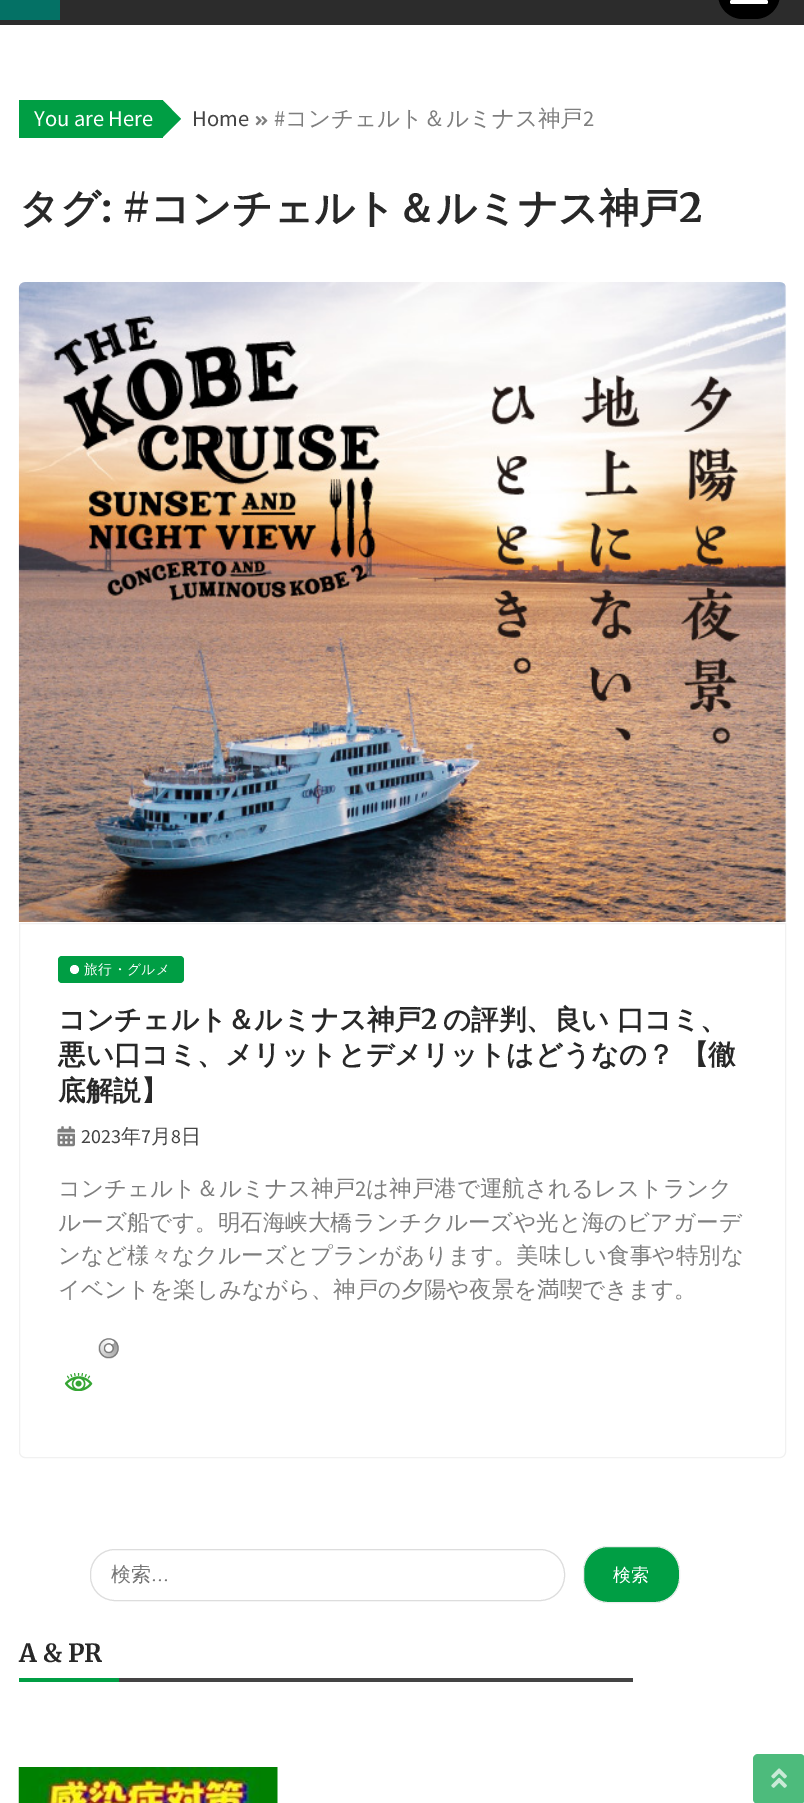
%!PS-Adobe-3.0
%%BoundingBox: 0 0 804 1803
%%LanguageLevel: 3
%%Pages: 1
%%EndComments
%%BeginProlog
/m { moveto } bind def
/l { lineto } bind def
/c { curveto } bind def
/h { closepath } bind def
/f { fill } bind def
/S { stroke } bind def
/q { gsave } bind def
/Q { grestore } bind def
/fn { [ exch dup neg 0 0 3 -1 roll 0 0 ] selectfont } def
/tx { moveto show } def
/bx { rectfill } def
/ci { newpath 0 360 arc closepath } def
/rr { 5 dict begin { /r /h /w /y /x } { exch def } forall
  x r add y moveto x w add y 2 copy h add r arct x w add y h add x 1 index r arct
  x y h add x y r arct x y 2 copy exch w add exch r arct closepath end } def
/im { 5 dict begin { /h /w /y /x /name } { exch def } forall
  gsave x y translate w h scale
  w h 8 [w 0 0 h 0 0] name (r) file false 3 colorimage grestore end } def
%%EndProlog
%%BeginSetup
<< /PageSize [804 1803] >> setpagedevice
%%EndSetup
%%Page: 1 1
0 1803 translate 1 -1 scale
4 setmiterlimit
1 setgray
0 0 804 1803 bx
0.173 setgray
0 0 804 25 bx
0.016 0.443 0.396 setrgbcolor
0 0 60 20 bx
0 setgray
718 -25 62 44 25 rr f
1 setgray
730 0 38 4 2 rr f
0 0.62 0.267 setrgbcolor
19 100 144 38 bx
/SourceSansPro-Regular 22.5 fn
1 setgray
(You are Here) 34 126 tx
0 0.62 0.267 setrgbcolor
162.5 137.5 m 162.5 100 l 181 119 l h f
0.267 setgray
(Home) 192 126 tx
(image0.raw) 255 116 13 10 im
0.494 setgray
(#) 274 126 tx
/WenQuanYiZenHei-Medium 22.5 fn
(コンチェルト＆ルミナス神戸) 285 126 tx
/SourceSansPro-Regular 22.5 fn
(2) 583 126 tx
/WenQuanYiZenHei-Bold 40 fn
0.157 setgray
(タグ) 19 222 tx
/Merriweather-Bold 40 fn
(: #) 101 222 tx
/WenQuanYiZenHei-Bold 40 fn
(コンチェルト＆ルミナス神戸) 150 222 tx
/Merriweather-Bold 40 fn
(2) 679 222 tx
(image1.raw) 18 282 769 640 im
0.945 setgray
19.5 923.5 m 785.5 923.5 l 785.5 1452 l 785.5 1455 783 1457.5 780 1457.5 c 25 1457.5 l 22 1457.5 19.5 1455 19.5 1452 c h S
0 0.62 0.267 setrgbcolor
58 956 126 27 4 rr f
1 setgray
74.5 969.5 4.5 ci f
/WenQuanYiZenHei-Medium 13.75 fn
84 974 m 0.5 0 (旅行・グルメ) ashow
/WenQuanYiZenHei-Bold 27.5 fn
0.157 setgray
(コンチェルト＆ルミナス神戸) 58 1029 tx
/Merriweather-Bold 27.5 fn
(2) 421 1029 tx
/WenQuanYiZenHei-Bold 27.5 fn
443 1029 m -1 0 32 (の評判、良い 口コミ、) widthshow
58 1064 m -2 0 32 (悪い口コミ、メリットとデメリットはどうなの？ 【徹) widthshow
(底解説】) 58 1100 tx
(image2.raw) 57 1126 18 21 im
/SourceSansPro-Regular 20 fn
0.267 setgray
(2023) 81 1143 tx
/WenQuanYiZenHei-Medium 20 fn
(年) 121 1143 tx
/SourceSansPro-Regular 20 fn
(7) 141 1143 tx
/WenQuanYiZenHei-Medium 20 fn
(月) 151 1143 tx
/SourceSansPro-Regular 20 fn
(8) 171 1143 tx
/WenQuanYiZenHei-Medium 20 fn
(日) 181 1143 tx
/WenQuanYiZenHei-Medium 22.5 fn
0.494 setgray
(コンチェルト＆ルミナス神戸) 58 1196 tx
/SourceSansPro-Regular 22.5 fn
(2) 355 1196 tx
/WenQuanYiZenHei-Medium 22.5 fn
(は神戸港で運航されるレストランク) 366 1196 tx
(ルーズ船です。明石海峡大橋ランチクルーズや光と海のビアガーデ) 58 1230 tx
(ンなど様々なクルーズとプランがあります。美味しい食事や特別な) 58 1263 tx
(イベントを楽しみながら、神戸の夕陽や夜景を満喫できます。) 58 1297 tx
(image3.raw) 98 1338 21 21 im
(image4.raw) 64 1373 29 18 im
0.867 setgray
90.5 1549.5 474 51 24.5 rr S
/WenQuanYiZenHei-Medium 20 fn
0.459 setgray
(検索) 111 1581 tx
/Jost-Regular 20 fn
(…) 151 1581 tx
0 0.62 0.267 setrgbcolor
583.5 1546.5 96 56 24.5 rr q f Q
0.933 setgray
S
/WenQuanYiZenHei-Medium 18 fn
1 setgray
(検索) 613 1581 tx
0.267 setgray
119 1678 514 4 bx
/Merriweather-Bold 25 fn
0.157 setgray
(A & PR) 19 1662 tx
0 0.62 0.267 setrgbcolor
19 1678 100 4 bx
(image5.raw) 18 1767 260 36 im
0.302 0.733 0.486 setrgbcolor
753 1754 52 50 5 rr f
(image6.raw) 771 1768 16 20 im
showpage
%%EOF
